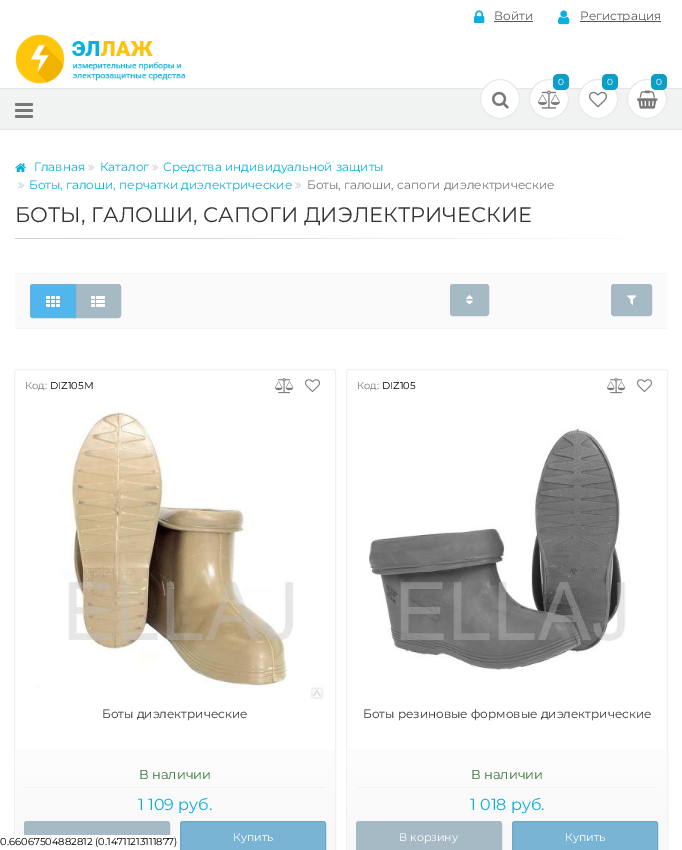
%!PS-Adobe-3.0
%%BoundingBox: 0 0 682 850
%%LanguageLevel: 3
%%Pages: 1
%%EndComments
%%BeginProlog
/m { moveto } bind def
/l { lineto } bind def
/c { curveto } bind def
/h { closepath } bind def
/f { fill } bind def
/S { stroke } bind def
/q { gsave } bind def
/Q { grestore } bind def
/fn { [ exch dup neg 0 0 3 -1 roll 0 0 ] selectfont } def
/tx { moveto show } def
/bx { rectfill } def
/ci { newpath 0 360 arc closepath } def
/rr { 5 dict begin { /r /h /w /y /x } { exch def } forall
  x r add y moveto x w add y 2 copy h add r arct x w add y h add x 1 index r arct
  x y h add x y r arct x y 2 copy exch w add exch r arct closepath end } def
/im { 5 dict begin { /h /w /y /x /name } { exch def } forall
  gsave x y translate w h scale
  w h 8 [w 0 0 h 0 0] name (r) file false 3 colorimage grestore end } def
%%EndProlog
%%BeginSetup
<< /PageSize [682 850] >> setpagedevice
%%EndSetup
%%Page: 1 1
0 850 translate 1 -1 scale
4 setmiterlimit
1 setgray
0 0 682 850 bx
(image0.raw) 474 10 11 13 im
/Montserrat-Regular 12 fn
0.333 setgray
(Войти) 494 20 tx
494 21 39 1 bx
(image1.raw) 558 10 12 15 im
580 21 81 1 bx
(Регистрация) 580 20 tx
(image2.raw) 15 34 171 50 im
0.945 0.949 0.949 setrgbcolor
0 89 682 40 bx
0.89 0.894 0.894 setrgbcolor
0 88 682 1 bx
0 129 682 1 bx
1 setgray
500 99 19.5 ci q f Q
0.914 setgray
S
(image3.raw) 492 91 17 18 im
1 setgray
549 99 19.5 ci q f Q
0.914 setgray
S
0.047 0.62 0.78 setrgbcolor
553 74 16 16 5 rr f
/Montserrat-Regular 9 fn
1 setgray
(0) 558 85 tx
(image4.raw) 538 90 22 19 im
598 99 19.5 ci q f Q
0.914 setgray
S
0.047 0.62 0.78 setrgbcolor
602 74 16 16 5 rr f
1 setgray
(0) 607 85 tx
(image5.raw) 589 91 18 17 im
647 99 19.5 ci q f Q
0.914 setgray
S
0.047 0.62 0.78 setrgbcolor
651 74 16 16 5 rr f
1 setgray
(0) 656 85 tx
(image6.raw) 637 90 21 19 im
(image7.raw) 15 103 18 15 im
(image8.raw) 15 163 11 9 im
/Montserrat-Regular 12 fn
0.035 0.686 0.875 setrgbcolor
(Главная) 34 171 tx
(image9.raw) 88 164 6 7 im
(Каталог) 100 171 tx
(image9.raw) 152 164 6 7 im
(Средства индивидуальной защиты) 163 171 tx
(image9.raw) 18 182 6 7 im
(Боты, галоши, перчатки диэлектрические) 29 189 tx
(image9.raw) 295 182 6 7 im
0.467 setgray
(Боты, галоши, сапоги диэлектрические) 307 189 tx
/Montserrat-Regular 21 fn
0.2 setgray
(БОТЫ, ГАЛОШИ, САПОГИ ДИЭЛЕКТРИЧЕСКИЕ) 15 222 tx
q 15 238 m 629 238 l 629 239 l 15 239 l h clip newpath
<< /ShadingType 2 /ColorSpace /DeviceRGB /Coords [15 239 667 238] /Extend [true true] /Function << /FunctionType 3 /Domain [0 1] /Functions [<< /FunctionType 2 /Domain [0 1] /C0 [0.82 0.82 0.82] /C1 [0.878 0.878 0.878] /N 1 >> << /FunctionType 2 /Domain [0 1] /C0 [0.878 0.878 0.878] /C1 [0.949 0.949 0.949] /N 1 >> << /FunctionType 2 /Domain [0 1] /C0 [0.949 0.949 0.949] /C1 [1 1 1] /N 1 >>] /Bounds [0.35 0.7] /Encode [0 1 0 1 0 1] >> >> shfill Q
0.984 0.98 0.98 setrgbcolor
15 274 652 54 bx
0.957 0.953 0.953 setrgbcolor
15 273 652 1 bx
15 328 652 1 bx
0.651 0.729 0.773 setrgbcolor
75.5 284.5 m 118 284.5 l 119.5 284.5 120.5 285.5 120.5 287 c 120.5 315 l 120.5 316.5 119.5 317.5 118 317.5 c 75.5 317.5 l h q f Q
S
0.322 0.714 0.933 setrgbcolor
33 284.5 m 75.5 284.5 l 75.5 317.5 l 33 317.5 l 31.5 317.5 30.5 316.5 30.5 315 c 30.5 287 l 30.5 285.5 31.5 284.5 33 284.5 c h q f Q
0.427 0.69 0.835 setrgbcolor
S
(image10.raw) 46 296 14 11 im
(image11.raw) 91 296 14 11 im
0.651 0.729 0.773 setrgbcolor
450.5 284.5 38 31 2.5 rr q f Q
S
(image12.raw) 466 295 7 10 im
611.5 284.5 40 31 2.5 rr q f Q
S
(image13.raw) 627 295 10 10 im
0.945 setgray
14.5 369.5 321 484 2.5 rr S
/Montserrat-Regular 10 fn
0.467 setgray
(Код:) 25 389 tx
0 setgray
(DIZ105M) 50 389 tx
(image14.raw) 275 378 19 16 im
(image15.raw) 305 379 15 13 im
(image16.raw) 37 412 288 288 im
q 15 750 m 335 750 l 335 850 l 15 850 l h clip newpath
<< /ShadingType 2 /ColorSpace /DeviceRGB /Coords [175 700 175 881] /Extend [true true] /Function << /FunctionType 2 /Domain [0 1] /C0 [1 1 1] /C1 [0.969 0.965 0.965] /N 1 >> >> shfill Q
/Montserrat-Regular 12 fn
0.2 setgray
(Боты диэлектрические) 102 718 tx
/Montserrat-Regular 13 fn
0.235 0.463 0.239 setrgbcolor
(В наличии) 139 779 tx
0.945 setgray
25 787 300 1 bx
/Montserrat-Regular 16 fn
0.035 0.686 0.875 setrgbcolor
(1 109 руб.) 138 810 tx
0.651 0.729 0.773 setrgbcolor
24.5 821.5 145 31 2.5 rr q f Q
S
0.475 0.706 0.831 setrgbcolor
180.5 821.5 145 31 2.5 rr q f Q
0.439 0.655 0.773 setrgbcolor
S
/Montserrat-Regular 11 fn
1 setgray
(Купить) 233 841 tx
0.945 setgray
346.5 369.5 321 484 2.5 rr S
/Montserrat-Regular 10 fn
0.467 setgray
(Код:) 357 389 tx
0 setgray
(DIZ105) 382 389 tx
(image14.raw) 607 378 19 16 im
(image15.raw) 637 379 15 13 im
(image17.raw) 369 424 257 246 im
q 347 750 m 667 750 l 667 850 l 347 850 l h clip newpath
<< /ShadingType 2 /ColorSpace /DeviceRGB /Coords [507 700 507 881] /Extend [true true] /Function << /FunctionType 2 /Domain [0 1] /C0 [1 1 1] /C1 [0.969 0.965 0.965] /N 1 >> >> shfill Q
/Montserrat-Regular 12 fn
0.2 setgray
(Боты резиновые формовые диэлектрические) 363 718 tx
/Montserrat-Regular 13 fn
0.235 0.463 0.239 setrgbcolor
(В наличии) 471 779 tx
0.945 setgray
357 787 300 1 bx
/Montserrat-Regular 16 fn
0.035 0.686 0.875 setrgbcolor
(1 018 руб.) 470 810 tx
0.651 0.729 0.773 setrgbcolor
356.5 821.5 145 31 2.5 rr q f Q
S
/Montserrat-Regular 11 fn
1 setgray
(В корзину) 399 841 tx
0.475 0.706 0.831 setrgbcolor
512.5 821.5 145 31 2.5 rr q f Q
0.439 0.655 0.773 setrgbcolor
S
1 setgray
(Купить) 565 841 tx
14 835 164 15 bx
/Montserrat-Regular 10 fn
0 setgray
(0.66067504882812 \(0.14711213111877\)) 0 845 tx
showpage
%%EOF
